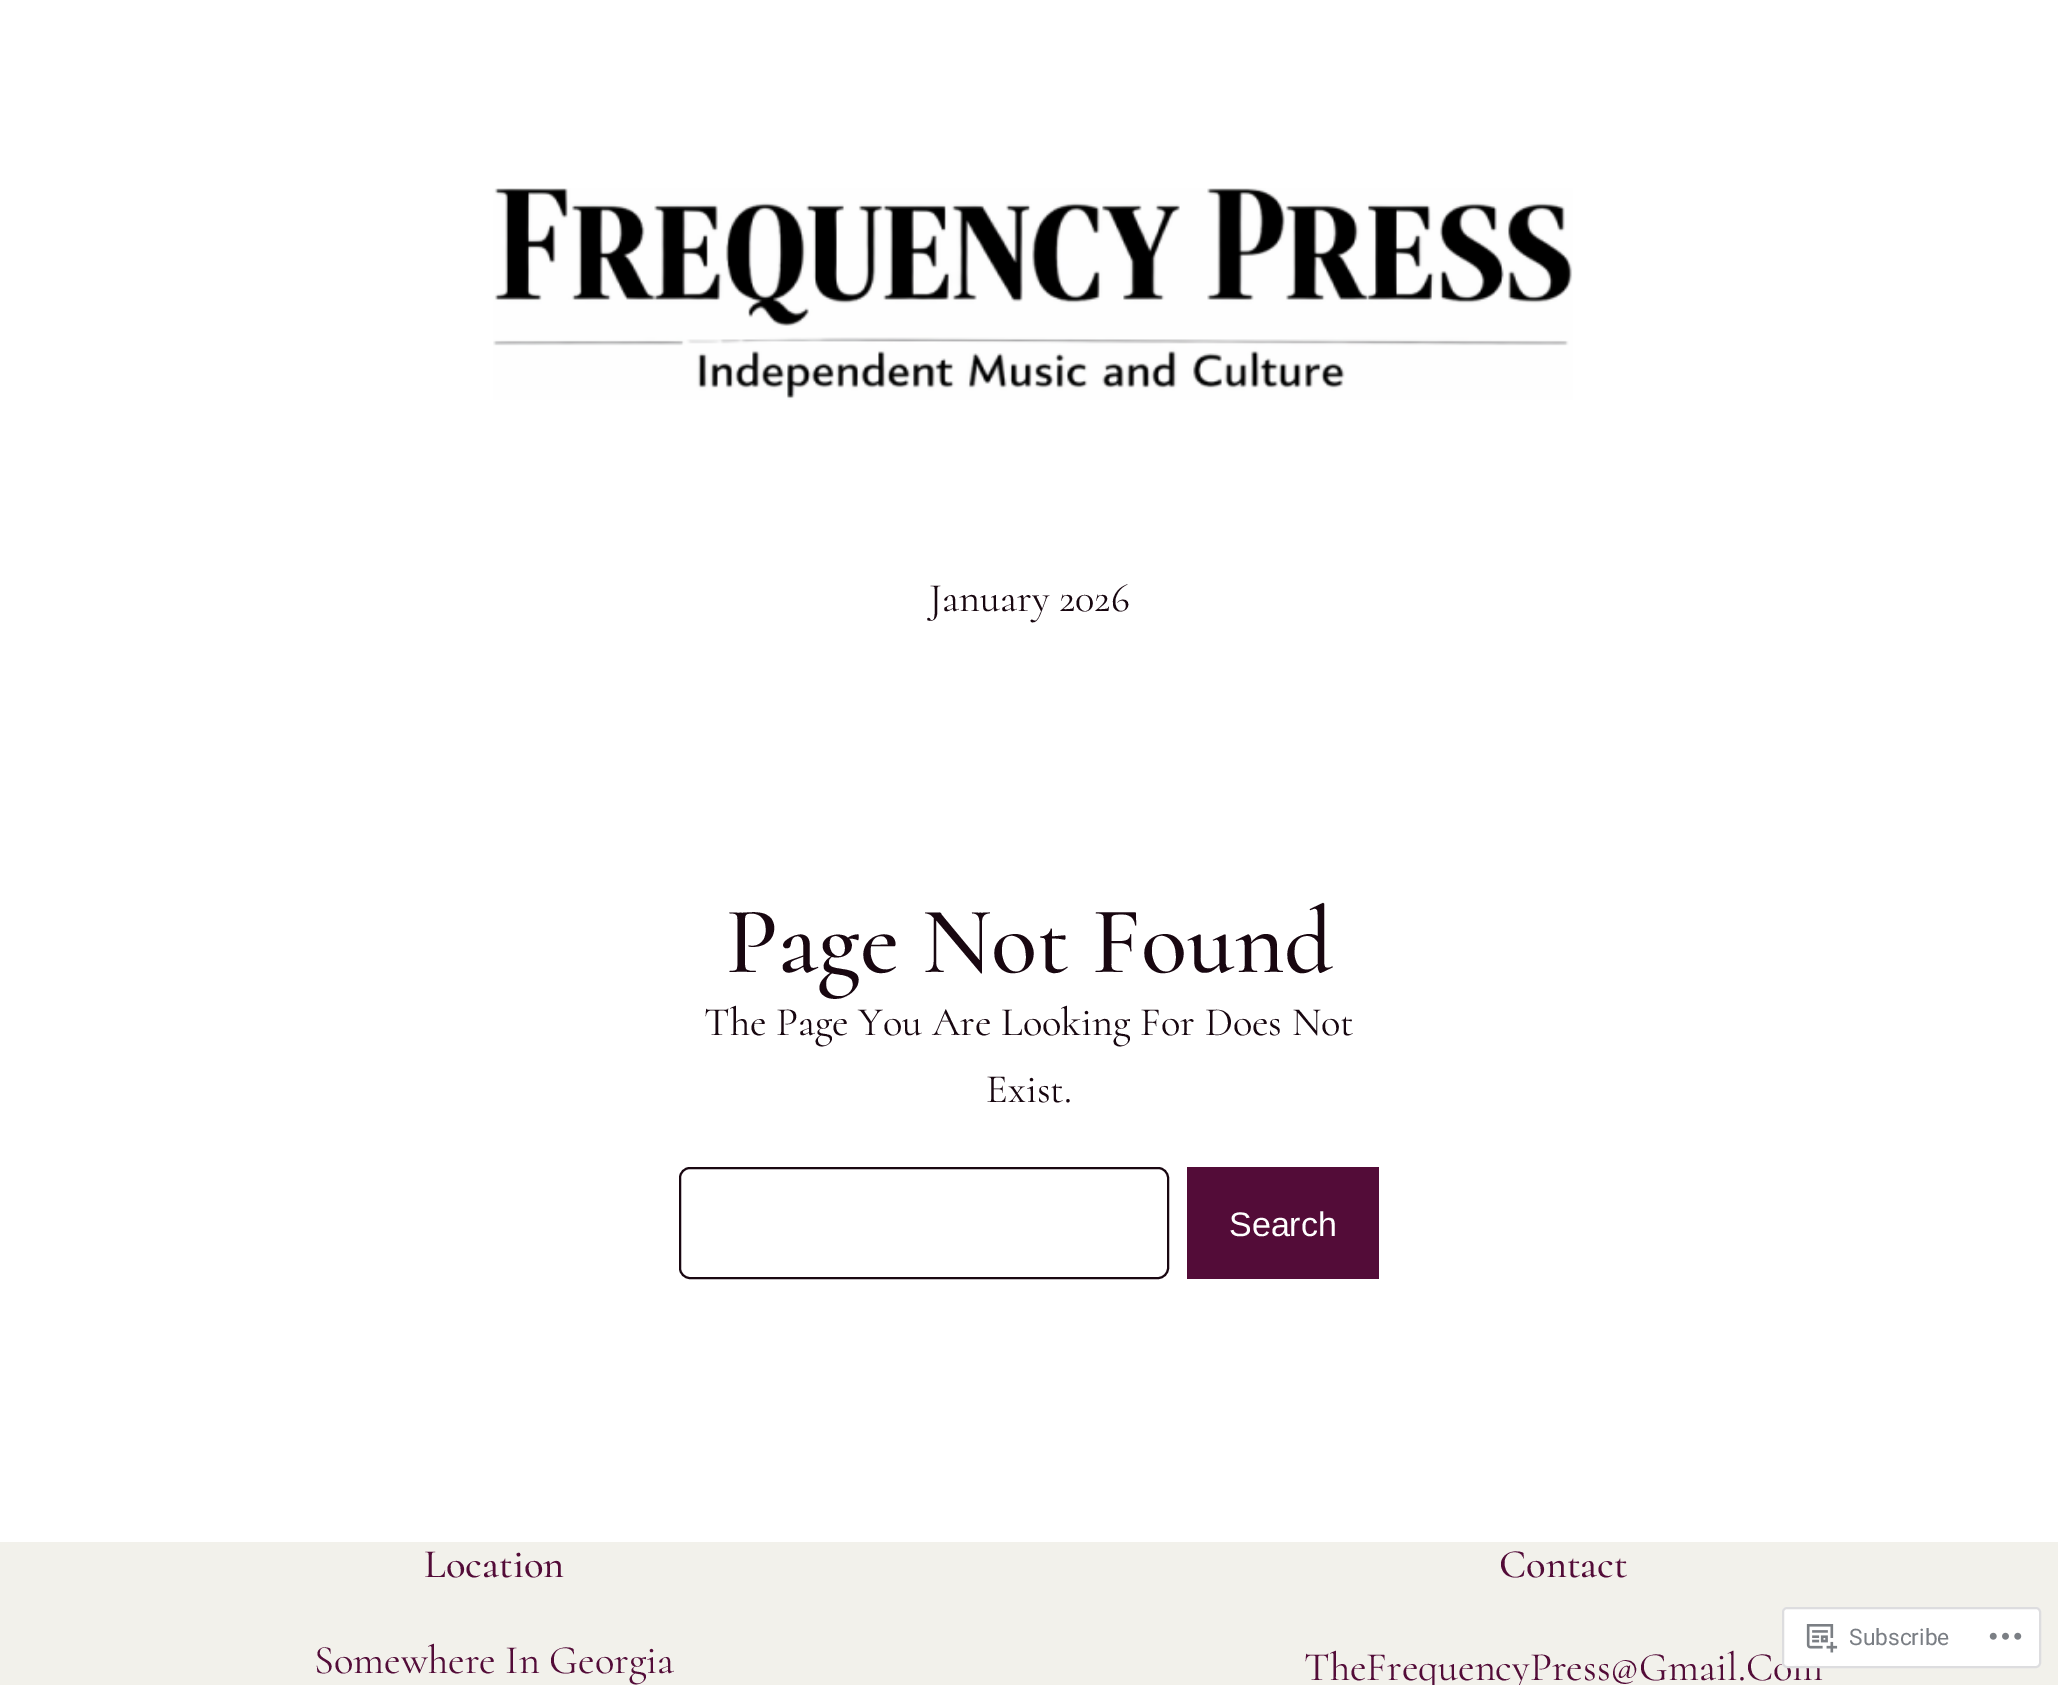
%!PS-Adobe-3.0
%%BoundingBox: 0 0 2058 1685
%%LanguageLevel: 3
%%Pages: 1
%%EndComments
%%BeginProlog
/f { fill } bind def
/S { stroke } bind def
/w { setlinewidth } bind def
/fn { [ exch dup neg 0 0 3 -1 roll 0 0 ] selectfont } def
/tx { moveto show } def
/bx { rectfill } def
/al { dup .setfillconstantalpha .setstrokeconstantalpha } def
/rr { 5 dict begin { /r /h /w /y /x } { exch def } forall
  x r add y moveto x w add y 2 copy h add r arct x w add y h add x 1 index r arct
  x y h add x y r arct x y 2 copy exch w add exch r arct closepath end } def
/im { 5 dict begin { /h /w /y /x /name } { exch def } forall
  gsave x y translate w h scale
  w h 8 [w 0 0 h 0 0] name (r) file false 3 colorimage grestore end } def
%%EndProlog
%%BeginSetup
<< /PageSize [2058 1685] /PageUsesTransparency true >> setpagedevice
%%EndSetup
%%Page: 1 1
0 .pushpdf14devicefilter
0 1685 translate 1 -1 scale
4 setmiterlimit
1 setgray
0 0 2058 1685 bx
(image0.raw) 493 188 1080 212 im
/Cormorant-Regular 40.5 fn
0.094 0.027 0.063 setrgbcolor
(January 2026) 929 611 tx
/Cormorant-Medium 95.5 fn
(Page Not Found) 726 972 tx
/Cormorant-Regular 40.5 fn
(The Page You Are Looking For Does Not) 704 1035 tx
(Exist.) 986 1102 tx
0.098 0.027 0.067 setrgbcolor
2 w
680 1168 488 110 10 rr S
0.325 0.047 0.22 setrgbcolor
1187 1167 192 112 bx
/LiberationSans-Regular 34 fn
1 setgray
(Search) 1229 1236 tx
0.949 0.945 0.922 setrgbcolor
0 1542 2058 143 bx
/Cormorant-Medium 40.5 fn
0.325 0.047 0.22 setrgbcolor
(Location) 424 1577 tx
/Cormorant-Regular 40.5 fn
(Somewhere In Georgia) 314 1673 tx
/Cormorant-Medium 40.5 fn
(Contact) 1499 1577 tx
/Cormorant-Regular 40.5 fn
(TheFrequencyPress@Gmail.Com) 1304 1680 tx
0.98 al
1 setgray
1782 1607 259 61 5 rr f
0.863 0.863 0.871 setrgbcolor
1783 1608 257 59 4 rr S
1 al
(image1.raw) 1806 1624 32 29 im
/Roboto-Regular 22.75 fn
0.478 0.494 0.518 setrgbcolor
(Subscribe) 1849 1645 tx
(image2.raw) 1989 1632 33 8 im
.poppdf14devicefilter showpage
%%EOF
